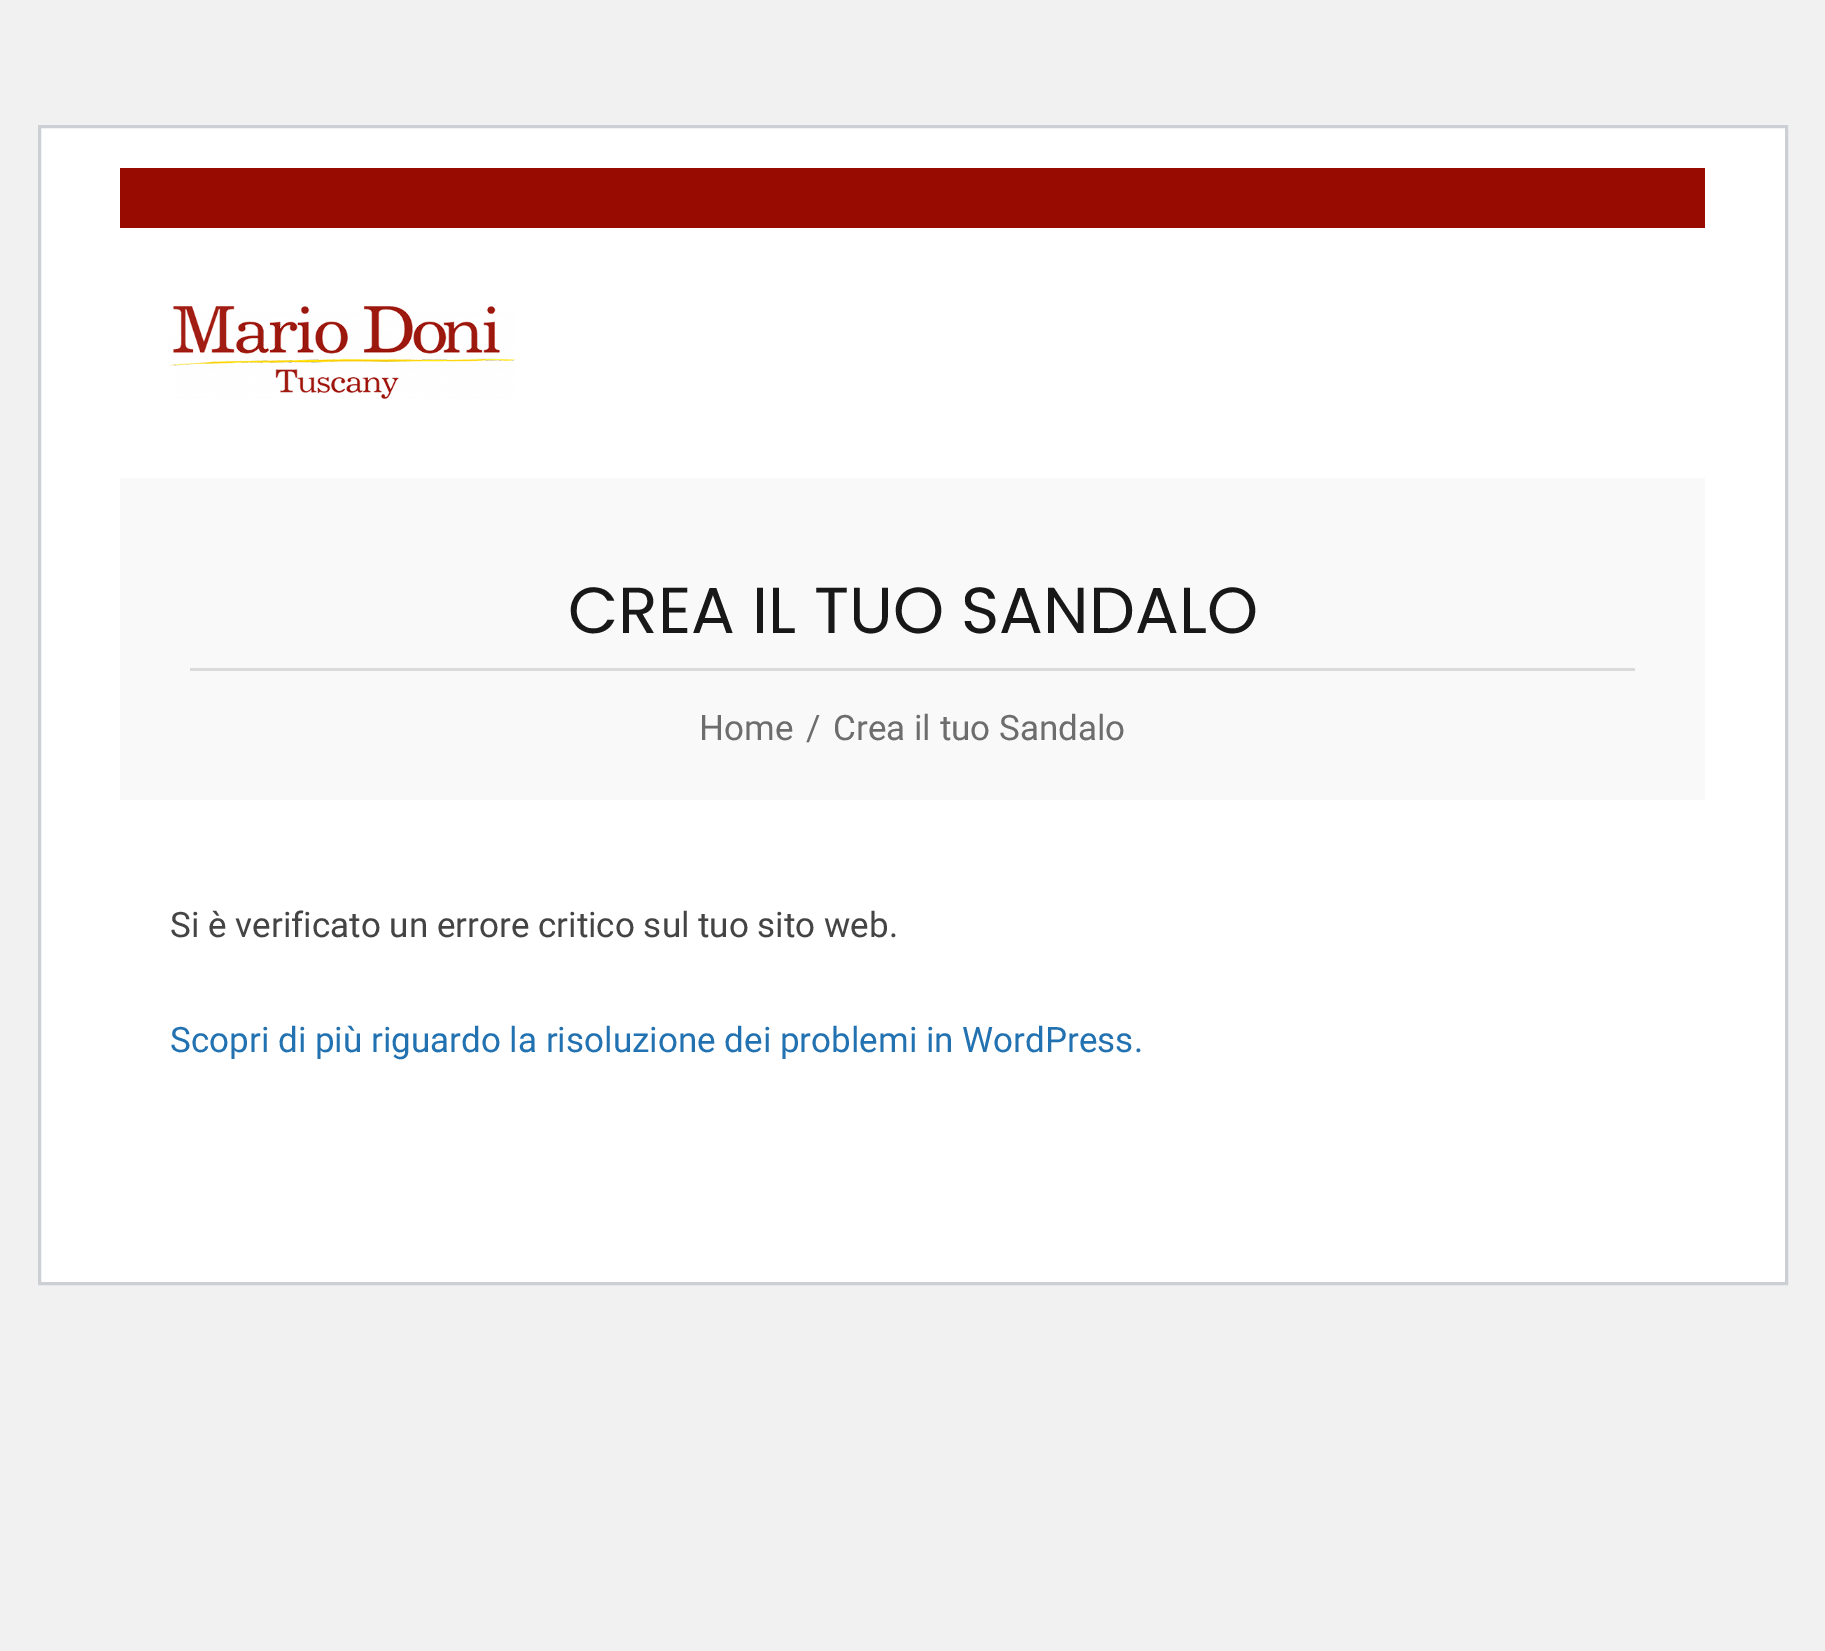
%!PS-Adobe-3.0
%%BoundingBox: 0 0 1825 1651
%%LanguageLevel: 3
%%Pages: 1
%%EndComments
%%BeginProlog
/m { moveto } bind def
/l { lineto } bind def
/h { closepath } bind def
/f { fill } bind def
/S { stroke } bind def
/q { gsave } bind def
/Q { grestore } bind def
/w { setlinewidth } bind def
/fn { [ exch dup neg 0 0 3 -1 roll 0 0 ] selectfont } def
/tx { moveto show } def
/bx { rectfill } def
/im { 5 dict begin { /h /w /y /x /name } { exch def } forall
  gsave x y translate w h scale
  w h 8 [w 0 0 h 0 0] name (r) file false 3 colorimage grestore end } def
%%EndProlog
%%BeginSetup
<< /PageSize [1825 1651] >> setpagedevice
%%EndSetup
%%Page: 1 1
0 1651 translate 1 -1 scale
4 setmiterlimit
0.945 setgray
0 0 1825 1651 bx
1 setgray
39.5 126.5 m 1786.5 126.5 l 1786.5 1283.5 l 39.5 1283.5 l h q f Q
0.8 0.816 0.831 setrgbcolor
3 w
S
0.596 0.043 0.004 setrgbcolor
120 168 1585 60 bx
(image0.raw) 170 306 346 93 im
0.976 setgray
120 478 1585 322 bx
0.855 setgray
190 668 1445 3 bx
/Poppins-Regular 65 fn
0.094 setgray
(CREA IL TUO SANDALO) 568 633 tx
/Roboto-Regular 35 fn
0.427 setgray
(Home) 699 740 tx
(/) 806 740 tx
(Crea il tuo Sandalo) 833 740 tx
0.267 setgray
(Si è verificato un errore critico sul tuo sito web.) 170 937 tx
0.133 0.443 0.694 setrgbcolor
(Scopri di più riguardo la risoluzione dei problemi in WordPress.) 170 1052 tx
showpage
%%EOF
